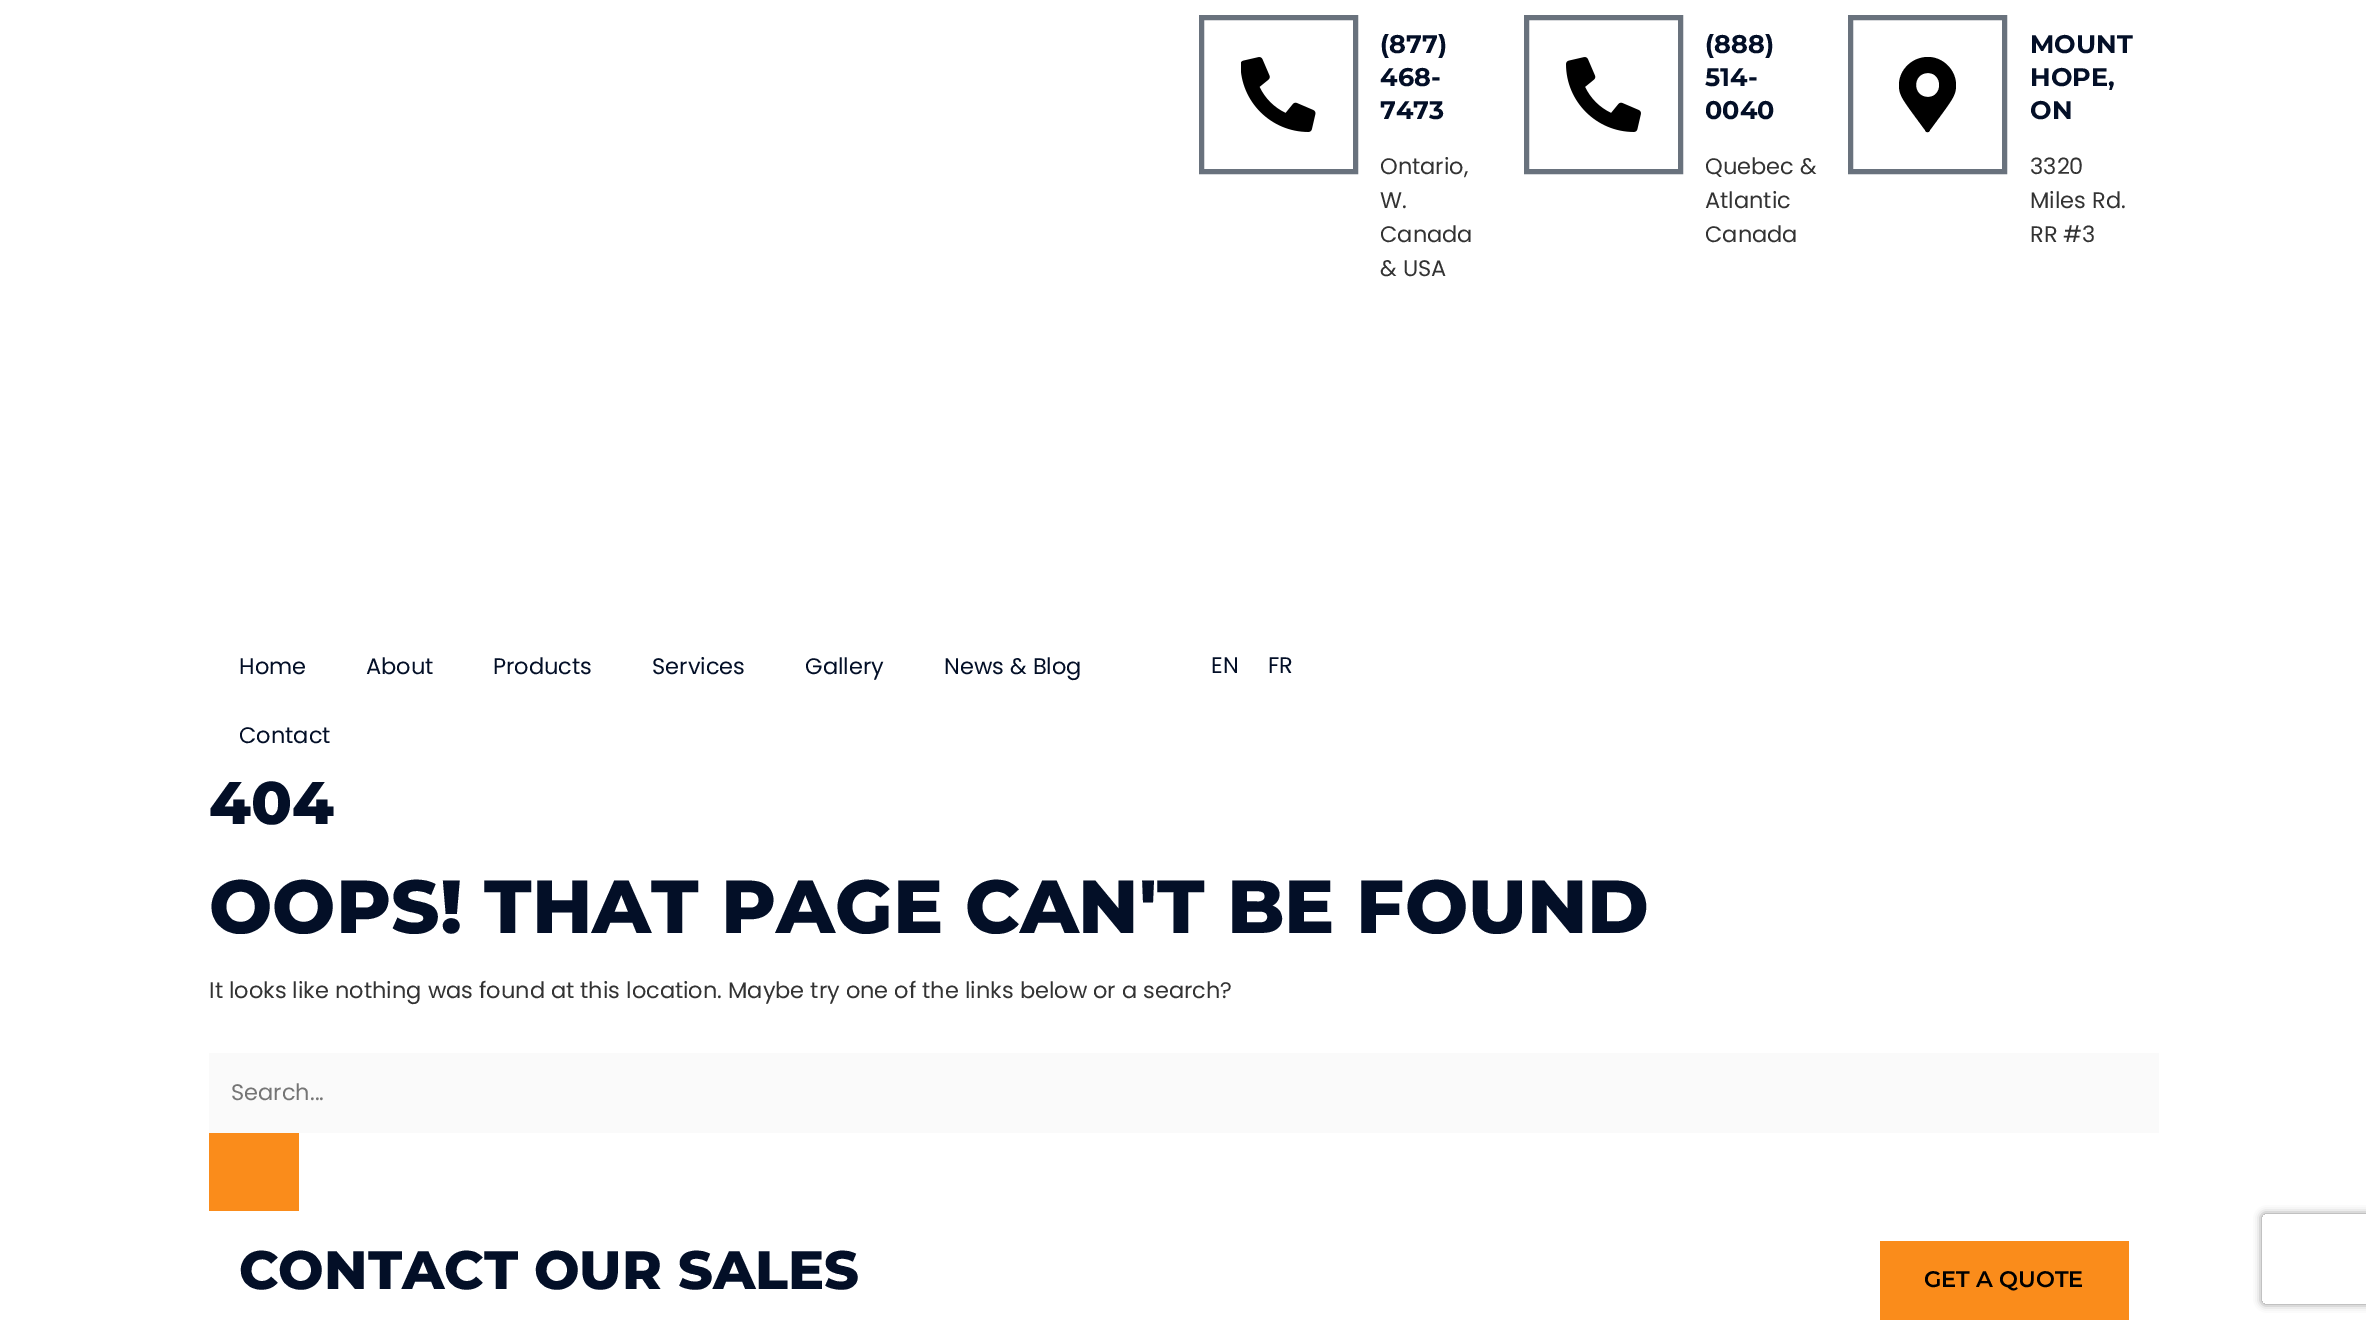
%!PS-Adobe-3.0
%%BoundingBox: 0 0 2366 1324
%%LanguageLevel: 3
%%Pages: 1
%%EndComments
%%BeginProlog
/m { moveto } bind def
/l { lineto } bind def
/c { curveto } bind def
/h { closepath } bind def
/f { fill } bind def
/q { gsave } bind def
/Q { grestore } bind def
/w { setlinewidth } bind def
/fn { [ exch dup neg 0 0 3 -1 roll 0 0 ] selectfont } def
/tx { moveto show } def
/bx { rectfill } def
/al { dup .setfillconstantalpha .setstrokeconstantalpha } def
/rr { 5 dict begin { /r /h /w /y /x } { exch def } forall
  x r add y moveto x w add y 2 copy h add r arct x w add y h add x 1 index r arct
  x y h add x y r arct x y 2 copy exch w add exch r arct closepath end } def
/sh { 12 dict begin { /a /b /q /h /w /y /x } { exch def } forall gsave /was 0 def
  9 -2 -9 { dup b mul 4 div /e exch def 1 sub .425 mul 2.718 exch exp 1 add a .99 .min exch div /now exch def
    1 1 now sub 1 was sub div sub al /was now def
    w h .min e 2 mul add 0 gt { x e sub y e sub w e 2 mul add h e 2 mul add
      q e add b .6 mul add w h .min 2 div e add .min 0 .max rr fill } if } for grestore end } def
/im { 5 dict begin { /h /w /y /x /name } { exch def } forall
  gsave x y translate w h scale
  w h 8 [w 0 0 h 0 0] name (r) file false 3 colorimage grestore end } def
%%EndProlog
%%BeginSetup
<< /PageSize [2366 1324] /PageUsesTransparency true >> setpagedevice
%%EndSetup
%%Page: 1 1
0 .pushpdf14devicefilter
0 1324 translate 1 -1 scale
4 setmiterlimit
1 setgray
0 0 2366 1324 bx
0.412 0.447 0.49 setrgbcolor
5 w
1201.5 17.5 154 154 rectstroke
(image0.raw) 1241 57 75 75 im
/Montserrat-Bold 25.5 fn
0.012 0.059 0.153 setrgbcolor
(\(877\)) 1380 53 tx
(468-) 1380 86 tx
(7473) 1380 119 tx
/Poppins-Regular 22.5 fn
0.2 setgray
(Ontario,) 1380 174 tx
(W.) 1380 208 tx
(Canada) 1380 242 tx
(& USA) 1380 276 tx
0.412 0.447 0.49 setrgbcolor
1526.5 17.5 154 154 rectstroke
(image1.raw) 1566 57 75 75 im
/Montserrat-Bold 25.5 fn
0.012 0.059 0.153 setrgbcolor
(\(888\)) 1705 53 tx
(514-) 1705 86 tx
(0040) 1705 119 tx
/Poppins-Regular 22.5 fn
0.2 setgray
(Quebec &) 1705 174 tx
(Atlantic) 1705 208 tx
(Canada) 1705 242 tx
0.412 0.447 0.49 setrgbcolor
1850.5 17.5 154 154 rectstroke
0 setgray
1925 130 m 1903 100 1899 96 1899 85 c 1899 70 1912 57 1928 57 c 1943 57 1956 70 1956 85 c 1956 96 1952 100 1930 130 c 1929 133 1926 133 1925 130 c h 1928 97 m 1943 97 1943 73 1928 73 c 1912 73 1912 97 1928 97 c h f
/Montserrat-Bold 25.5 fn
0.012 0.059 0.153 setrgbcolor
(MOUNT) 2030 53 tx
(HOPE,) 2030 86 tx
(ON) 2030 119 tx
/Poppins-Regular 22.5 fn
0.2 setgray
(3320) 2030 174 tx
(Miles Rd.) 2030 208 tx
(RR #3) 2030 242 tx
0.012 0.059 0.153 setrgbcolor
(Home) 239 674 tx
(About) 366 674 tx
(Products) 493 674 tx
(Services) 652 674 tx
(Gallery) 805 674 tx
(News & Blog) 944 674 tx
(Contact) 239 743 tx
(EN) 1211 673 tx
(FR) 1268 673 tx
/Montserrat-ExtraBold 60 fn
(404) 209 824 tx
/Montserrat-ExtraBold 75 fn
(OOPS! THAT PAGE CAN'T BE FOUND) 209 933 tx
/Poppins-Regular 22.5 fn
0.2 setgray
(It looks like nothing was found at this location. Maybe try one of the links below or a search?) 209 998 tx
0.98 setgray
209 1053 1950 80 bx
0.459 setgray
(Search...) 231 1100 tx
0.98 0.549 0.106 setrgbcolor
209 1133 90 78 bx
/Montserrat-ExtraBold 54 fn
0.012 0.059 0.153 setrgbcolor
(CONTACT OUR SALES) 239 1289 tx
0.98 0.549 0.106 setrgbcolor
1880 1241 249 79 bx
/Montserrat-SemiBold 22.5 fn
0 setgray
(GET A QUOTE) 1924 1287 tx
q
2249 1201 m 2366 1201 l 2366 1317 l 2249 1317 l h 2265 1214 m 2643 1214 l 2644.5 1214 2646 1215.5 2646 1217 c 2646 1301 l 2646 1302.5 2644.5 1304 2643 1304 c 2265 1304 l 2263.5 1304 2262 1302.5 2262 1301 c 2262 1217 l 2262 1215.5 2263.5 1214 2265 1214 c h eoclip newpath
0.502 setgray
2262 1214 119 90 3 4 1 sh
Q
.poppdf14devicefilter showpage
%%EOF
